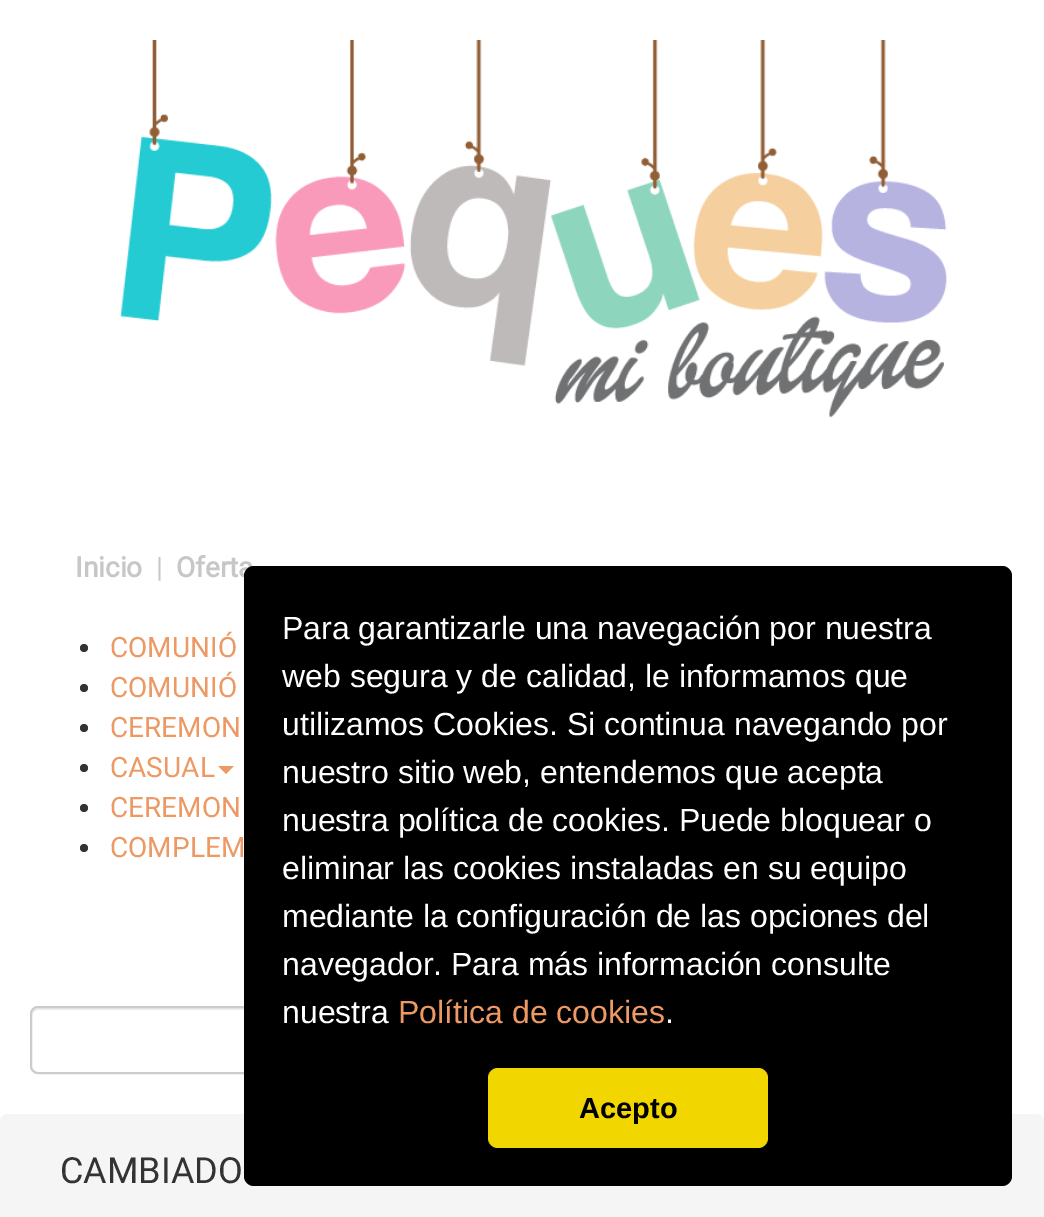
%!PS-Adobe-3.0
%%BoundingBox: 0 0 1044 1217
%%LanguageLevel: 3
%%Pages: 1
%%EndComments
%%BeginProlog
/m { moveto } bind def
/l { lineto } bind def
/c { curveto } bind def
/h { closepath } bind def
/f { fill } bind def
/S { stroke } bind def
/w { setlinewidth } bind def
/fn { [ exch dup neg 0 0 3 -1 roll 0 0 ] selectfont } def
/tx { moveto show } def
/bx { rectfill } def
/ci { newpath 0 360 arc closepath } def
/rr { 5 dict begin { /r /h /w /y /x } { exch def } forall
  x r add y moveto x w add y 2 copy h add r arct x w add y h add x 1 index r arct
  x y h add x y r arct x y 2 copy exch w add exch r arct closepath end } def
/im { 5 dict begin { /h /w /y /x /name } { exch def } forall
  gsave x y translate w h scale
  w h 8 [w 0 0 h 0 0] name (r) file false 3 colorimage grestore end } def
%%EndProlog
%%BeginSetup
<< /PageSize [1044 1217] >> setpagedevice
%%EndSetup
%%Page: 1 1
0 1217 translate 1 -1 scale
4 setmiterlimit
1 setgray
0 0 1044 1217 bx
(image0.raw) 120 40 827 378 im
/Roboto-Bold 28 fn
0.78 setgray
(Inicio) 75 577 tx
/Roboto-Regular 28 fn
(|) 156 577 tx
/Roboto-Bold 28 fn
(Oferta) 176 577 tx
0.2 setgray
84 648 4 ci f
/Roboto-Regular 28 fn
0.929 0.6 0.392 setrgbcolor
(COMUNIÓ) 110 657 tx
0.2 setgray
84 688 4 ci f
0.929 0.6 0.392 setrgbcolor
(COMUNIÓ) 110 697 tx
0.2 setgray
84 728 4 ci f
0.929 0.6 0.392 setrgbcolor
(CEREMON) 110 737 tx
0.2 setgray
84 768 4 ci f
0.929 0.6 0.392 setrgbcolor
(CASUAL) 110 777 tx
218 766 m 234 766 l 226 774 l h f
0.2 setgray
84 808 4 ci f
0.929 0.6 0.392 setrgbcolor
(CEREMON) 110 817 tx
0.2 setgray
84 848 4 ci f
0.929 0.6 0.392 setrgbcolor
(COMPLEM) 110 857 tx
0.925 setgray
38 1010 m 962 1010 l 962 1008 l 38 1008 l 33 1008 32 1012 32 1016 c 32 1013 35 1010 38 1010 c h f
0.8 setgray
2 w
38 1007 m 963 1007 l 963 1073 l 38 1073 l 34 1073 31 1070 31 1066 c 31 1014 l 31 1010 34 1007 38 1007 c h S
0.961 setgray
0 1114 1044 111 8 rr f
0 setgray
244 566 768 620 10 rr f
/LiberationSans-Regular 32 fn
1 setgray
(Para garantizarle una navegación por nuestra) 282 639 tx
(web segura y de calidad, le informamos que) 282 687 tx
(utilizamos Cookies. Si continua navegando por) 282 735 tx
(nuestro sitio web, entendemos que acepta) 282 783 tx
(nuestra política de cookies. Puede bloquear o) 282 831 tx
(eliminar las cookies instaladas en su equipo) 282 879 tx
(mediante la configuración de las opciones del) 282 927 tx
(navegador. Para más información consulte) 282 975 tx
(nuestra) 282 1023 tx
0.929 0.6 0.392 setrgbcolor
(Política de cookies) 398 1023 tx
1 setgray
(.) 665 1023 tx
0.945 0.839 0 setrgbcolor
488 1068 280 80 10 rr f
/LiberationSans-Bold 29 fn
0 setgray
(Acepto) 579 1118 tx
/Roboto-Regular 36 fn
0.2 setgray
(CAMBIADO) 60 1183 tx
showpage
%%EOF
